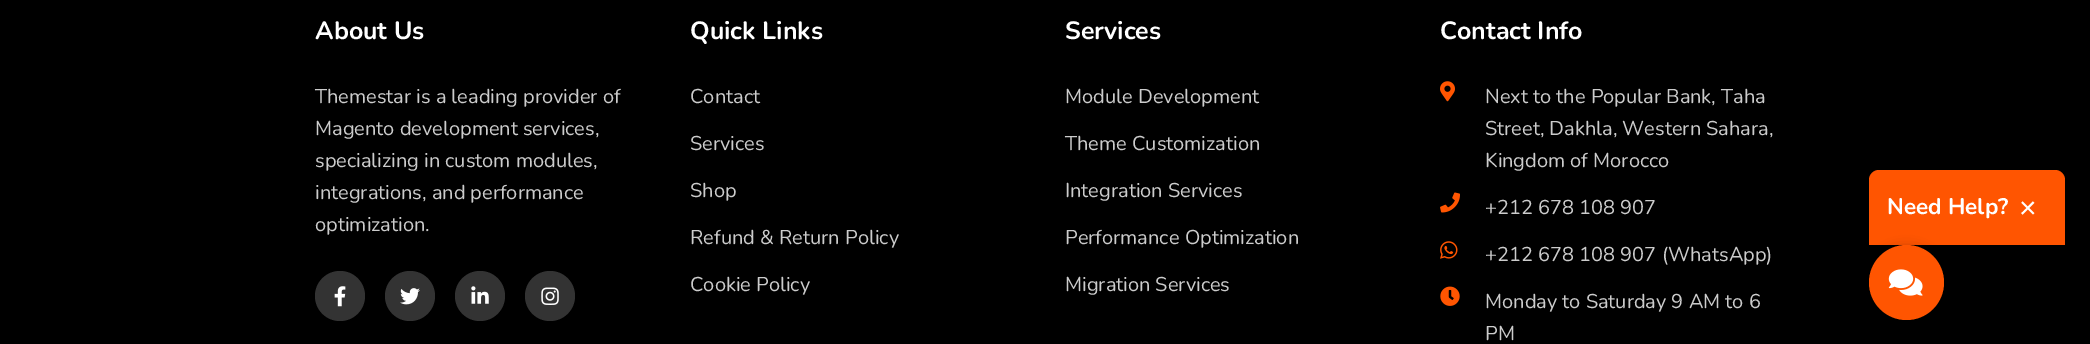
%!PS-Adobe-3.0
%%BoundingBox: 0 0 2090 344
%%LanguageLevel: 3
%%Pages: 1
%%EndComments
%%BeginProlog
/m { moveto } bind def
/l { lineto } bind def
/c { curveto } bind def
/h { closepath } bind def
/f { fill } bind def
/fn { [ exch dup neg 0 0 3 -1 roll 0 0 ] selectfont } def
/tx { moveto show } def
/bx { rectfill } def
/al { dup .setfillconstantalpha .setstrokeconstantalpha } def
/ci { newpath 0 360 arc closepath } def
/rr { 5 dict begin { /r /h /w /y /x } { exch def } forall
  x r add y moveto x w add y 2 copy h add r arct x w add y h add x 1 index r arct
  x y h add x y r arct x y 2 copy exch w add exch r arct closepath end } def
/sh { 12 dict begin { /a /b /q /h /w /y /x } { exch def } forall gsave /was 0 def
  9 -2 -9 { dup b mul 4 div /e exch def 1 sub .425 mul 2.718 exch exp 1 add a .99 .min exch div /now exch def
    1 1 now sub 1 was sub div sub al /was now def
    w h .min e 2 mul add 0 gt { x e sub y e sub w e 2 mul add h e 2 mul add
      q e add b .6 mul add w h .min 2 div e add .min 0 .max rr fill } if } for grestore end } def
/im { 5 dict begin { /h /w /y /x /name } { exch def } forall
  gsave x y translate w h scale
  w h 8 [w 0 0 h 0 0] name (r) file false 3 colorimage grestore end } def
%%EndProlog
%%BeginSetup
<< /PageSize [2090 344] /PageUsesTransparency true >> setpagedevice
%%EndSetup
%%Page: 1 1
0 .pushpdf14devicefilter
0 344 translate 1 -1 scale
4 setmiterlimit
0 setgray
0 0 2090 344 bx
/Nunito-Bold 25 fn
1 setgray
(About Us) 315 39 tx
/Nunito-Regular 20 fn
0.8 setgray
(Themestar is a leading provider of) 315 103 tx
(Magento development services,) 315 135 tx
(specializing in custom modules,) 315 167 tx
(integrations, and performance) 315 199 tx
(optimization.) 315 231 tx
0.2 setgray
340 296 25 ci f
(image0.raw) 334 286 12 21 im
410 296 25 ci f
(image1.raw) 400 288 20 17 im
480 296 25 ci f
(image2.raw) 471 286 18 18 im
550 296 25 ci f
(image3.raw) 541 287 18 18 im
/Nunito-Bold 25 fn
1 setgray
(Quick Links) 690 39 tx
/Nunito-Regular 20 fn
0.8 setgray
(Contact) 690 103 tx
(Services) 690 150 tx
(Shop) 690 197 tx
(Refund & Return Policy) 690 244 tx
(Cookie Policy) 690 291 tx
/Nunito-Bold 25 fn
1 setgray
(Services) 1065 39 tx
/Nunito-Regular 20 fn
0.8 setgray
(Module Development) 1065 103 tx
(Theme Customization) 1065 150 tx
(Integration Services) 1065 197 tx
(Performance Optimization) 1065 244 tx
(Migration Services) 1065 291 tx
/Nunito-Bold 25 fn
1 setgray
(Contact Info) 1440 39 tx
(image4.raw) 1440 81 15 21 im
/Nunito-Regular 20 fn
0.8 setgray
(Next to the Popular Bank, Taha) 1485 103 tx
(Street, Dakhla, Western Sahara,) 1485 135 tx
(Kingdom of Morocco) 1485 167 tx
(image5.raw) 1440 192 20 21 im
(+212 678 108 907) 1485 214 tx
(image6.raw) 1440 241 18 18 im
(+212 678 108 907 \(WhatsApp\)) 1485 261 tx
(image7.raw) 1440 286 20 20 im
(Monday to Saturday 9 AM to 6) 1485 308 tx
(PM) 1485 340 tx
1 0.333 0.004 setrgbcolor
1879 170 m 2055 170 l 2060.5 170 2065 174.5 2065 180 c 2065 245 l 1869 245 l 1869 180 l 1869 174.5 1873.5 170 1879 170 c h f
/Nunito-Bold 22.5 fn
1 setgray
(Need Help?) 1887 214 tx
/LiberationSans-Regular 30 fn
(×) 2019 218 tx
0 setgray
1869 248 75 75 37.5 6 0.3 sh
1 0.333 0.004 setrgbcolor
1906.5 282.5 37.5 ci f
(image8.raw) 1888 269 35 27 im
.poppdf14devicefilter showpage
%%EOF
